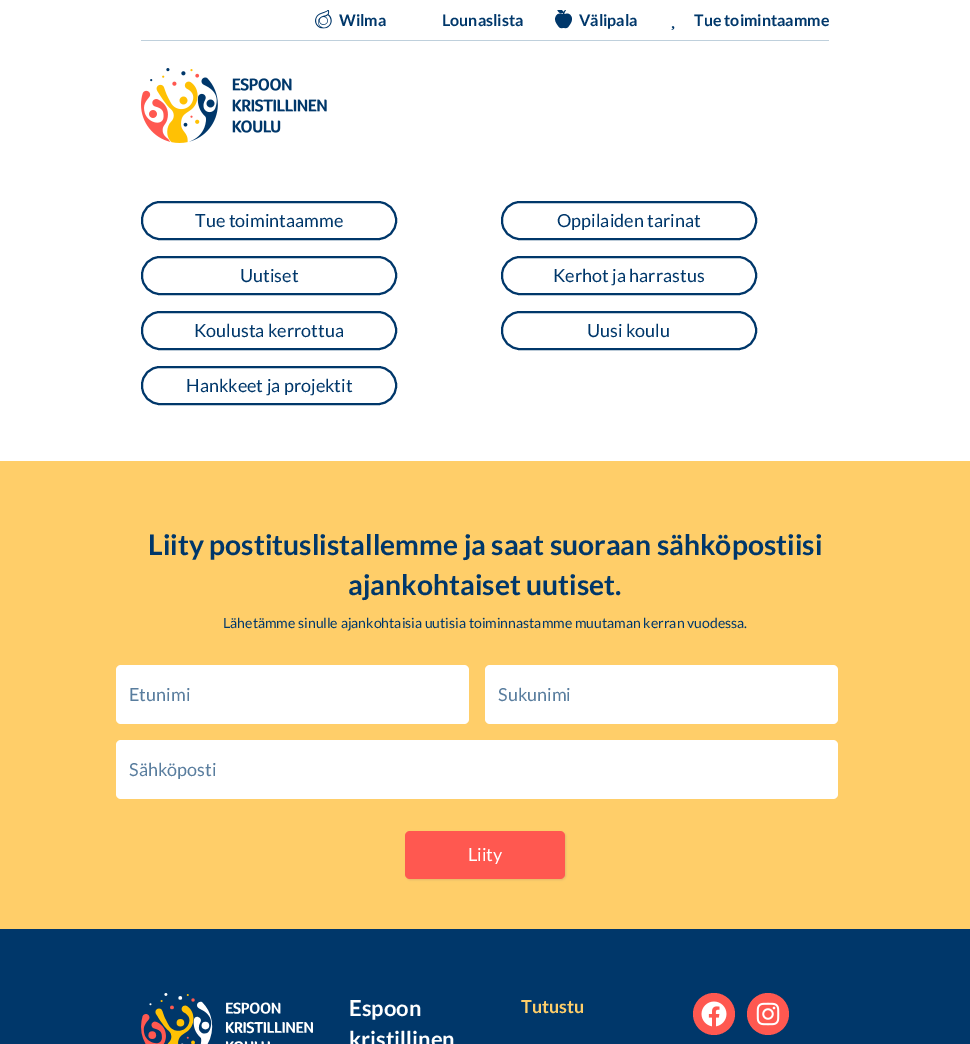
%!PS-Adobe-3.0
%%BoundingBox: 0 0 970 1044
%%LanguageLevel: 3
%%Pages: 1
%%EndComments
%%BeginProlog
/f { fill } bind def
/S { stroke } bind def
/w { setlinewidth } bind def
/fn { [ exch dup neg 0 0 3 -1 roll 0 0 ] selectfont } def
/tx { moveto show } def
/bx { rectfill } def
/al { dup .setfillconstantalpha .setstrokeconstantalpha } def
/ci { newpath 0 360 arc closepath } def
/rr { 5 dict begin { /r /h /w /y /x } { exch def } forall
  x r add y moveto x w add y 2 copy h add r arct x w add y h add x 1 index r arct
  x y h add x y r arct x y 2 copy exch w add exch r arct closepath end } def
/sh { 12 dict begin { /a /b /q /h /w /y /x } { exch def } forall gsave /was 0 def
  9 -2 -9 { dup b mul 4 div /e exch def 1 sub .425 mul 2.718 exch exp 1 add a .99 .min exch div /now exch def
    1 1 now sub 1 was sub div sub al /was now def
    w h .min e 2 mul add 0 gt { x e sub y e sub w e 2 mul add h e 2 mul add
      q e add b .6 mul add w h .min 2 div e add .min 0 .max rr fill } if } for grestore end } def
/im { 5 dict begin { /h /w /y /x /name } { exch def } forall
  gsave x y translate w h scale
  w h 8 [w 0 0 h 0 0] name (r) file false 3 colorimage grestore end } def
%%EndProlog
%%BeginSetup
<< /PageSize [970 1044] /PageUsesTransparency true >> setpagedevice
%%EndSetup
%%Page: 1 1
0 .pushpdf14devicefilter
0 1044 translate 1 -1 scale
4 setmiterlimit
1 setgray
0 0 970 1044 bx
0.749 0.816 0.863 setrgbcolor
141 40 688 1 bx
(image0.raw) 315 10 17 19 im
/Lato-Bold 16 fn
0 0.216 0.416 setrgbcolor
(Wilma) 339 26 tx
(Lounaslista) 442 26 tx
(image1.raw) 555 10 17 19 im
(Välipala) 579 26 tx
(Tue toimintaamme) 694 26 tx
(image2.raw) 671 26 4 4 im
(image3.raw) 141 68 186 75 im
2 w
142 202 254 37 18 rr S
/Lato-Regular 18 fn
(Tue toimintaamme) 195 227 tx
502 202 254 37 18 rr S
(Oppilaiden tarinat) 557 227 tx
142 257 254 37 18 rr S
(Uutiset) 240 282 tx
502 257 254 37 18 rr S
(Kerhot ja harrastus) 553 282 tx
142 312 254 37 18 rr S
(Koulusta kerrottua) 194 337 tx
502 312 254 37 18 rr S
(Uusi koulu) 587 337 tx
142 367 254 37 18 rr S
(Hankkeet ja projektit) 186 392 tx
1 0.808 0.412 setrgbcolor
0 461 970 468 bx
/Lato-Bold 28.25 fn
0 0.216 0.416 setrgbcolor
(Liity postituslistallemme ja saat suoraan sähköpostiisi) 148 555 tx
(ajankohtaiset uutiset.) 348 595 tx
/Lato-Regular 14.05 fn
(Lähetämme sinulle ajankohtaisia uutisia toiminnastamme muutaman kerran vuodessa.) 223 628 tx
1 setgray
116 665 353 59 5 rr f
/Lato-Regular 18 fn
0.349 0.49 0.62 setrgbcolor
(Etunimi) 129 701 tx
1 setgray
485 665 353 59 5 rr f
0.349 0.49 0.62 setrgbcolor
(Sukunimi) 498 701 tx
1 setgray
116 740 722 59 5 rr f
0.349 0.49 0.62 setrgbcolor
(Sähköposti) 129 776 tx
0.392 setgray
406 832 160 48 5 1 0.2 sh
1 0.345 0.314 setrgbcolor
405 831 160 48 5 rr f
1 setgray
(Liity) 468 861 tx
0 0.216 0.416 setrgbcolor
0 929 970 115 bx
(image4.raw) 141 993 172 51 im
/Lato-Bold 22 fn
1 setgray
(Espoon) 349 1016 tx
(kristillinen) 349 1047 tx
/Lato-Bold 18 fn
1 0.808 0.412 setrgbcolor
(Tutustu) 521 1013 tx
1 0.345 0.314 setrgbcolor
714 1014 21 ci f
(image5.raw) 701 1001 26 26 im
768 1014 21 ci f
(image6.raw) 756 1002 24 24 im
.poppdf14devicefilter showpage
%%EOF
